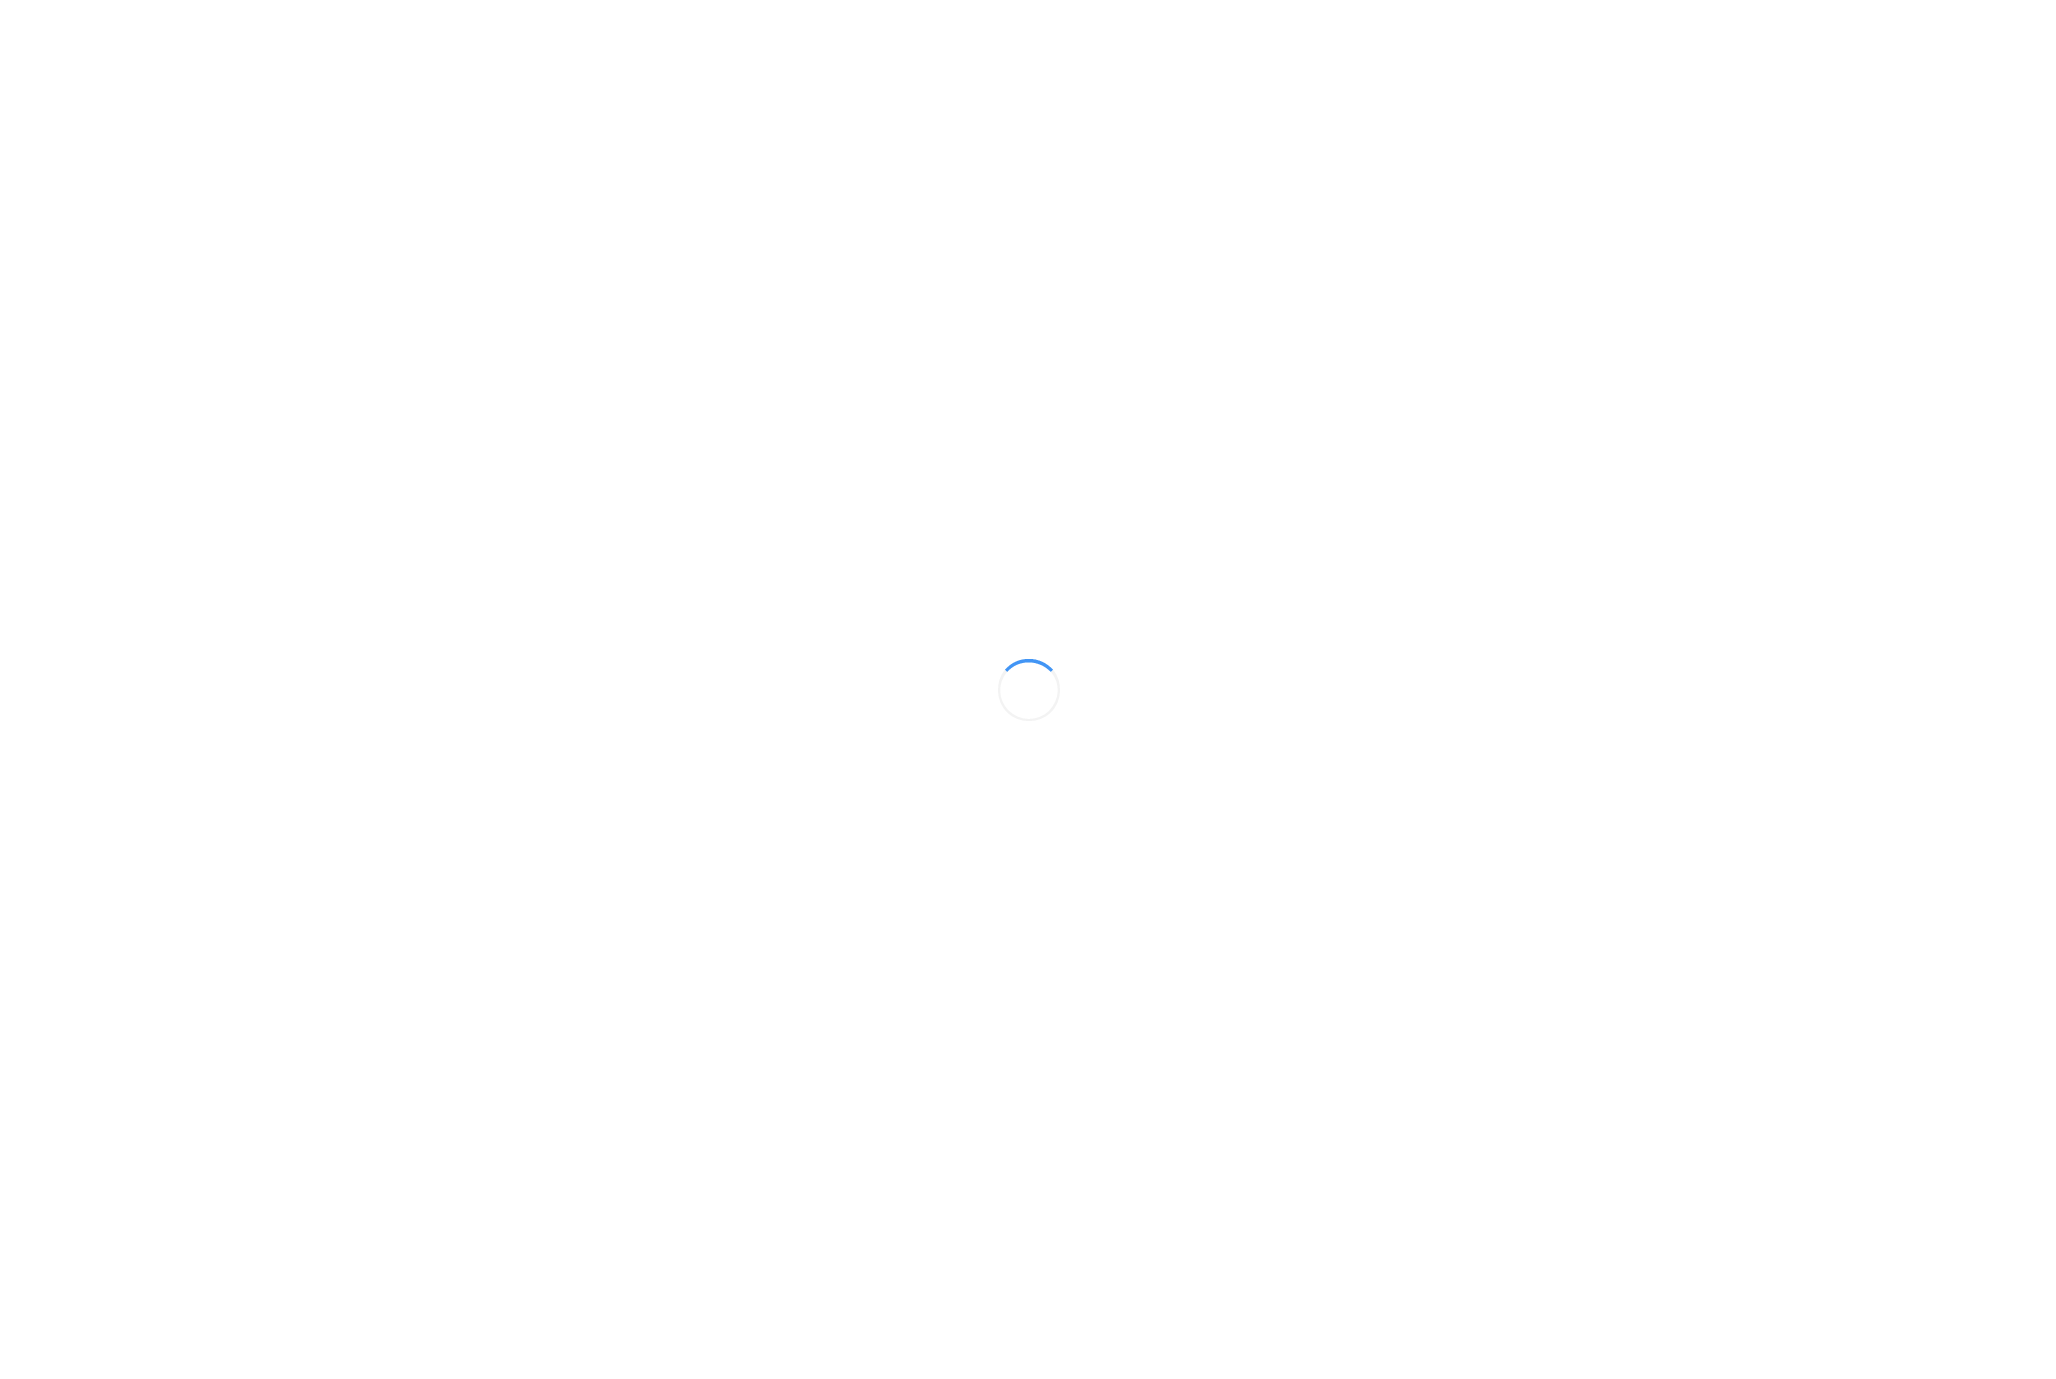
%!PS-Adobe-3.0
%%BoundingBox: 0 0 2056 1379
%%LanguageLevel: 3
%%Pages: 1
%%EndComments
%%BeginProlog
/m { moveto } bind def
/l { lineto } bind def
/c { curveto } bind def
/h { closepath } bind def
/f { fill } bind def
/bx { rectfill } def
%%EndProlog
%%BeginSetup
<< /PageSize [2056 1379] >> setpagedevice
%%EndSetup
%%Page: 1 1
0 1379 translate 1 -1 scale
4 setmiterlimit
1 setgray
0 0 2056 1379 bx
0.259 0.584 0.961 setrgbcolor
1029 659 m 1019 659 1011 663 1005 670 c 1007 672 l 1018 659 1039 659 1051 672 c 1053 670 l 1047 663 1038 659 1029 659 c h f
0.953 setgray
1053 670 m 1063 682 1062 701 1051 712 c 1049 711 l 1060 700 1061 683 1051 672 c h f
1051 712 m 1039 724 1019 724 1007 712 c 1008 710 l 1019 722 1038 722 1049 711 c h f
1005 670 m 995 682 996 701 1007 712 c 1008 710 l 998 700 997 683 1007 672 c h f
showpage
%%EOF
